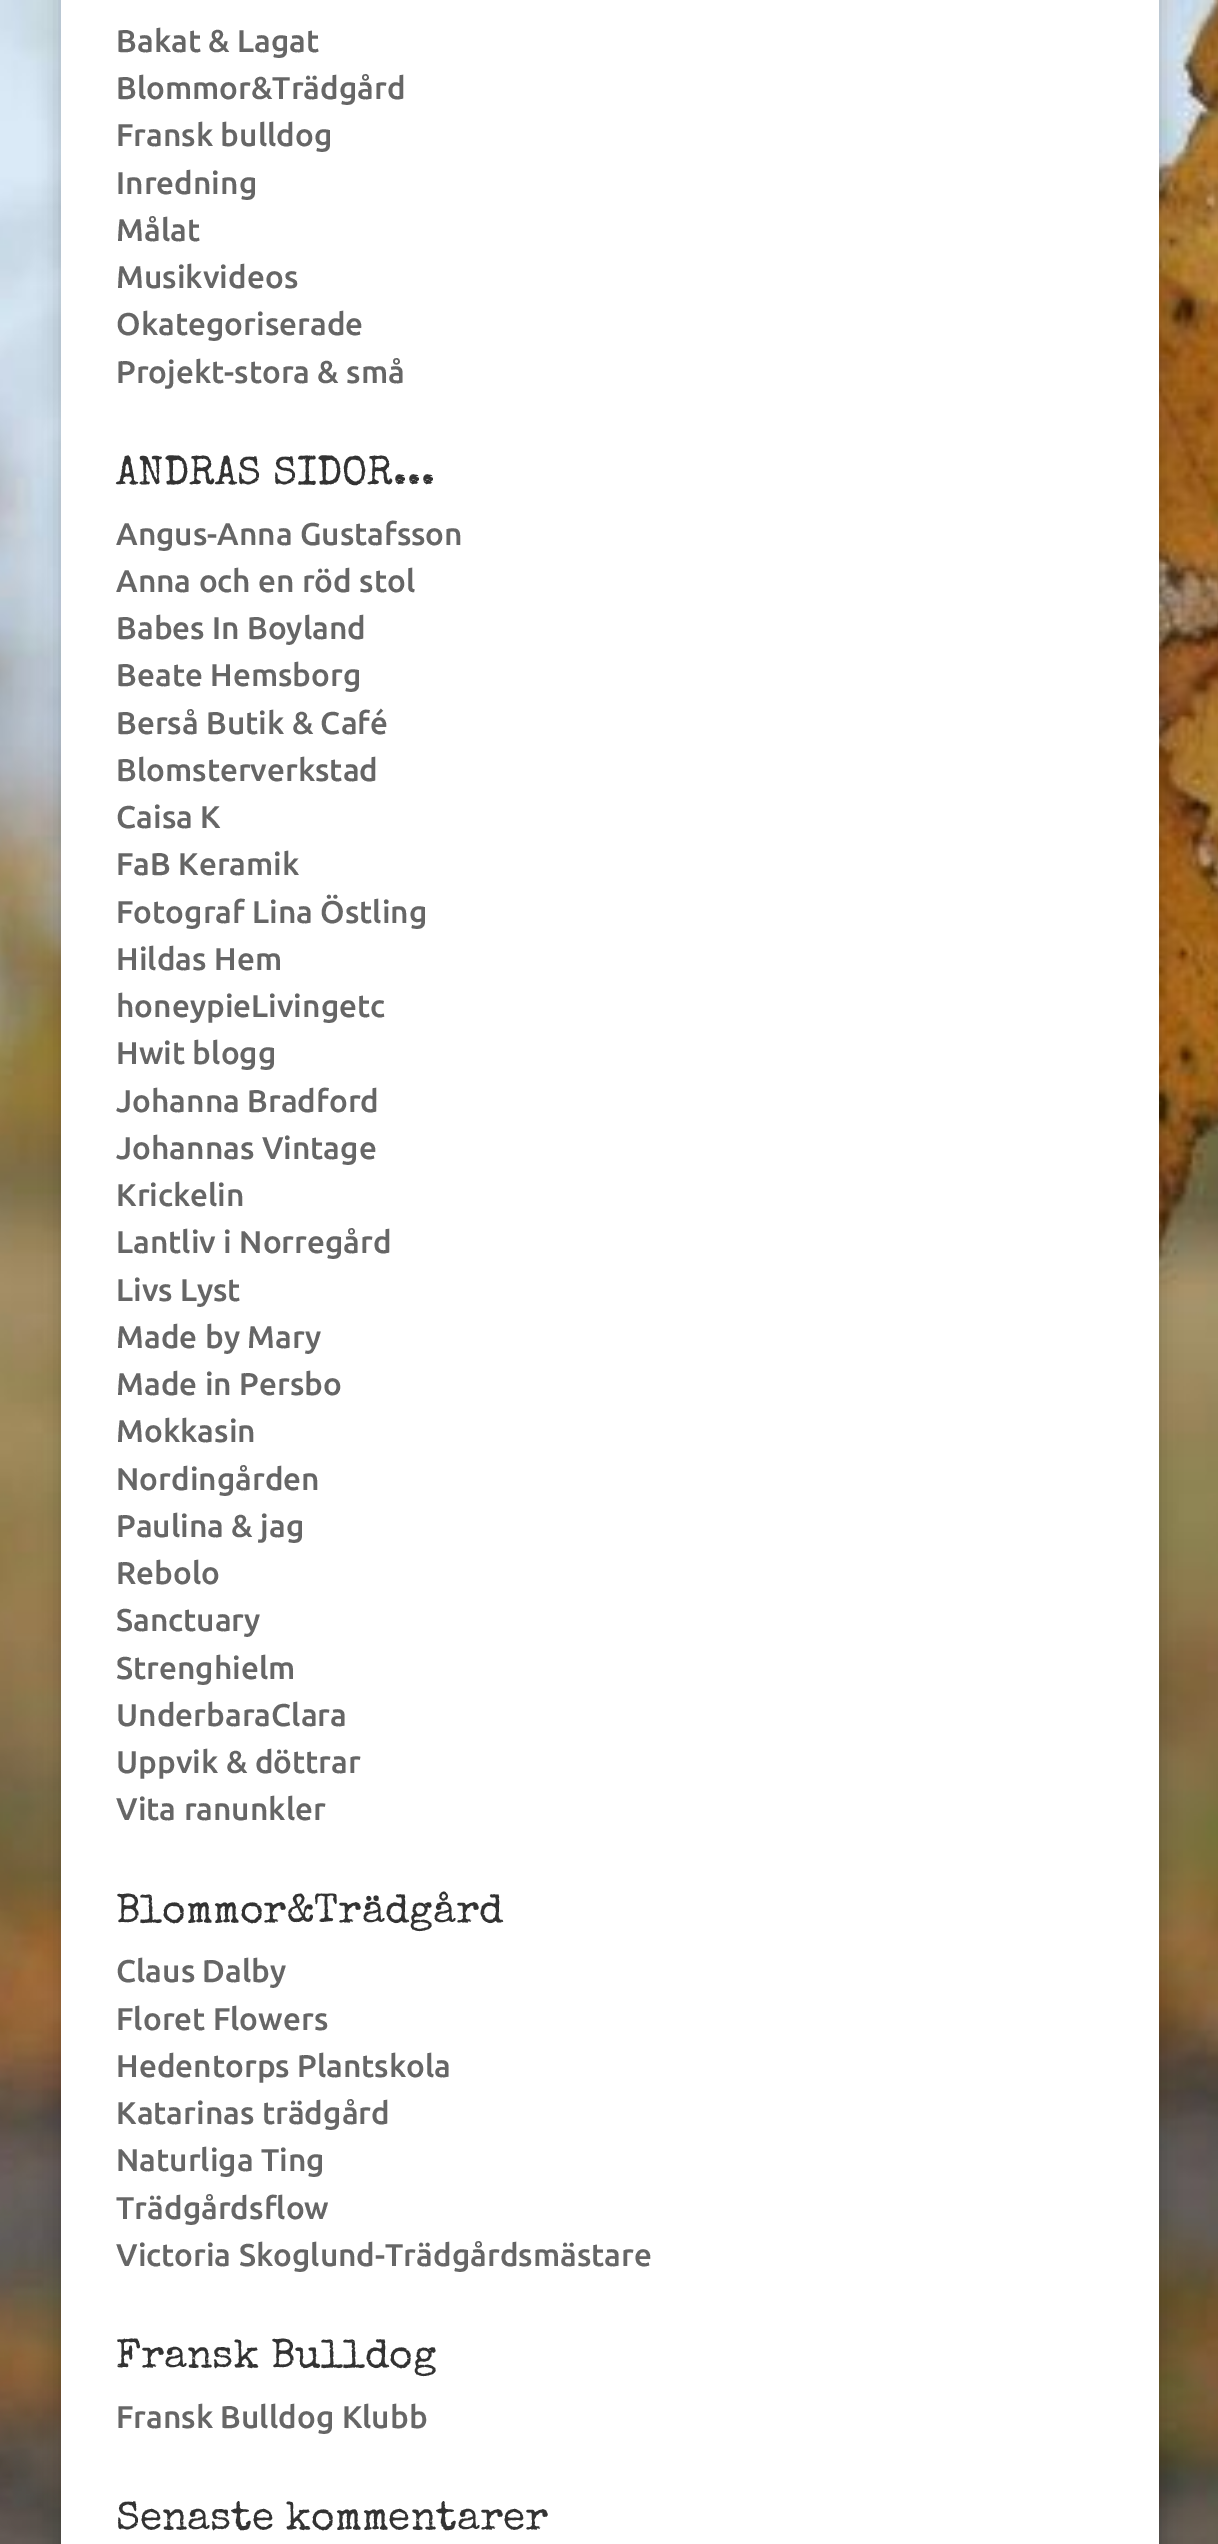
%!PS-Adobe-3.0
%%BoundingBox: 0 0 1218 2544
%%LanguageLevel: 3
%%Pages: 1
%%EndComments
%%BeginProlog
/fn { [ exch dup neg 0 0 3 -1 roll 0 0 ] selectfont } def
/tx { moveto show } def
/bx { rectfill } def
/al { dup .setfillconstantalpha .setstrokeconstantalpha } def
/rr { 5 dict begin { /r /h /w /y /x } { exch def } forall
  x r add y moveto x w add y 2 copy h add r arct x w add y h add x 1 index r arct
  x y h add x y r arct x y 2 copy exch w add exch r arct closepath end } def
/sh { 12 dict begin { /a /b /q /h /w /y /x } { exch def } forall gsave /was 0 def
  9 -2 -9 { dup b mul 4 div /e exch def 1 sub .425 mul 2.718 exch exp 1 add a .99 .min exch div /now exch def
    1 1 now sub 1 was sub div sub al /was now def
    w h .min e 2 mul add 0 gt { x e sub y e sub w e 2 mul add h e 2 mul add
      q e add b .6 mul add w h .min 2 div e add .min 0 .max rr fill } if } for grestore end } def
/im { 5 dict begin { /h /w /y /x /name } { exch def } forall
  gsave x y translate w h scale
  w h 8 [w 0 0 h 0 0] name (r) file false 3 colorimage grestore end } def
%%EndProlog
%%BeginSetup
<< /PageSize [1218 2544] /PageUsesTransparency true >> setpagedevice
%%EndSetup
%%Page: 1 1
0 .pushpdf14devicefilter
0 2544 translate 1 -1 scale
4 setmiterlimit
1 setgray
0 0 1218 2544 bx
(image0.raw) 0 0 1218 2544 im
0 setgray
61 -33 1098 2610 0 11 0.2 sh
1 setgray
61 0 1098 2544 bx
/Ubuntu-Medium 31.5 fn
0.4 setgray
(Bakat & Lagat) 116 52 tx
(Blommor&Trädgård) 116 99 tx
(Fransk bulldog) 116 146 tx
(Inredning) 116 194 tx
(Målat) 116 241 tx
(Musikvideos) 116 288 tx
(Okategoriserade) 116 335 tx
(Projekt-stora & små) 116 383 tx
/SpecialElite-Regular 40.5 fn
0.2 setgray
(ANDRAS SIDOR...) 116 484 tx
/Ubuntu-Medium 31.5 fn
0.4 setgray
(Angus-Anna Gustafsson) 116 545 tx
(Anna och en röd stol) 116 592 tx
(Babes In Boyland) 116 639 tx
(Beate Hemsborg) 116 686 tx
(Berså Butik & Café) 116 734 tx
(Blomsterverkstad) 116 781 tx
(Caisa K) 116 828 tx
(FaB Keramik) 116 875 tx
(Fotograf Lina Östling) 116 923 tx
(Hildas Hem) 116 970 tx
(honeypieLivingetc) 116 1017 tx
(Hwit blogg) 116 1064 tx
(Johanna Bradford) 116 1112 tx
(Johannas Vintage) 116 1159 tx
(Krickelin) 116 1206 tx
(Lantliv i Norregård) 116 1253 tx
(Livs Lyst) 116 1301 tx
(Made by Mary) 116 1348 tx
(Made in Persbo) 116 1395 tx
(Mokkasin) 116 1442 tx
(Nordingården) 116 1490 tx
(Paulina & jag) 116 1537 tx
(Rebolo) 116 1584 tx
(Sanctuary) 116 1631 tx
(Strenghielm) 116 1679 tx
(UnderbaraClara) 116 1726 tx
(Uppvik & döttrar) 116 1773 tx
(Vita ranunkler) 116 1820 tx
/SpecialElite-Regular 40.5 fn
0.2 setgray
(Blommor&Trädgård) 116 1922 tx
/Ubuntu-Medium 31.5 fn
0.4 setgray
(Claus Dalby) 116 1982 tx
(Floret Flowers) 116 2030 tx
(Hedentorps Plantskola) 116 2077 tx
(Katarinas trädgård) 116 2124 tx
(Naturliga Ting) 116 2171 tx
(Trädgårdsflow) 116 2219 tx
(Victoria Skoglund-Trädgårdsmästare) 116 2266 tx
/SpecialElite-Regular 40.5 fn
0.2 setgray
(Fransk Bulldog) 116 2367 tx
/Ubuntu-Medium 31.5 fn
0.4 setgray
(Fransk Bulldog Klubb) 116 2428 tx
/SpecialElite-Regular 40.5 fn
0.2 setgray
(Senaste kommentarer) 116 2529 tx
.poppdf14devicefilter showpage
%%EOF
